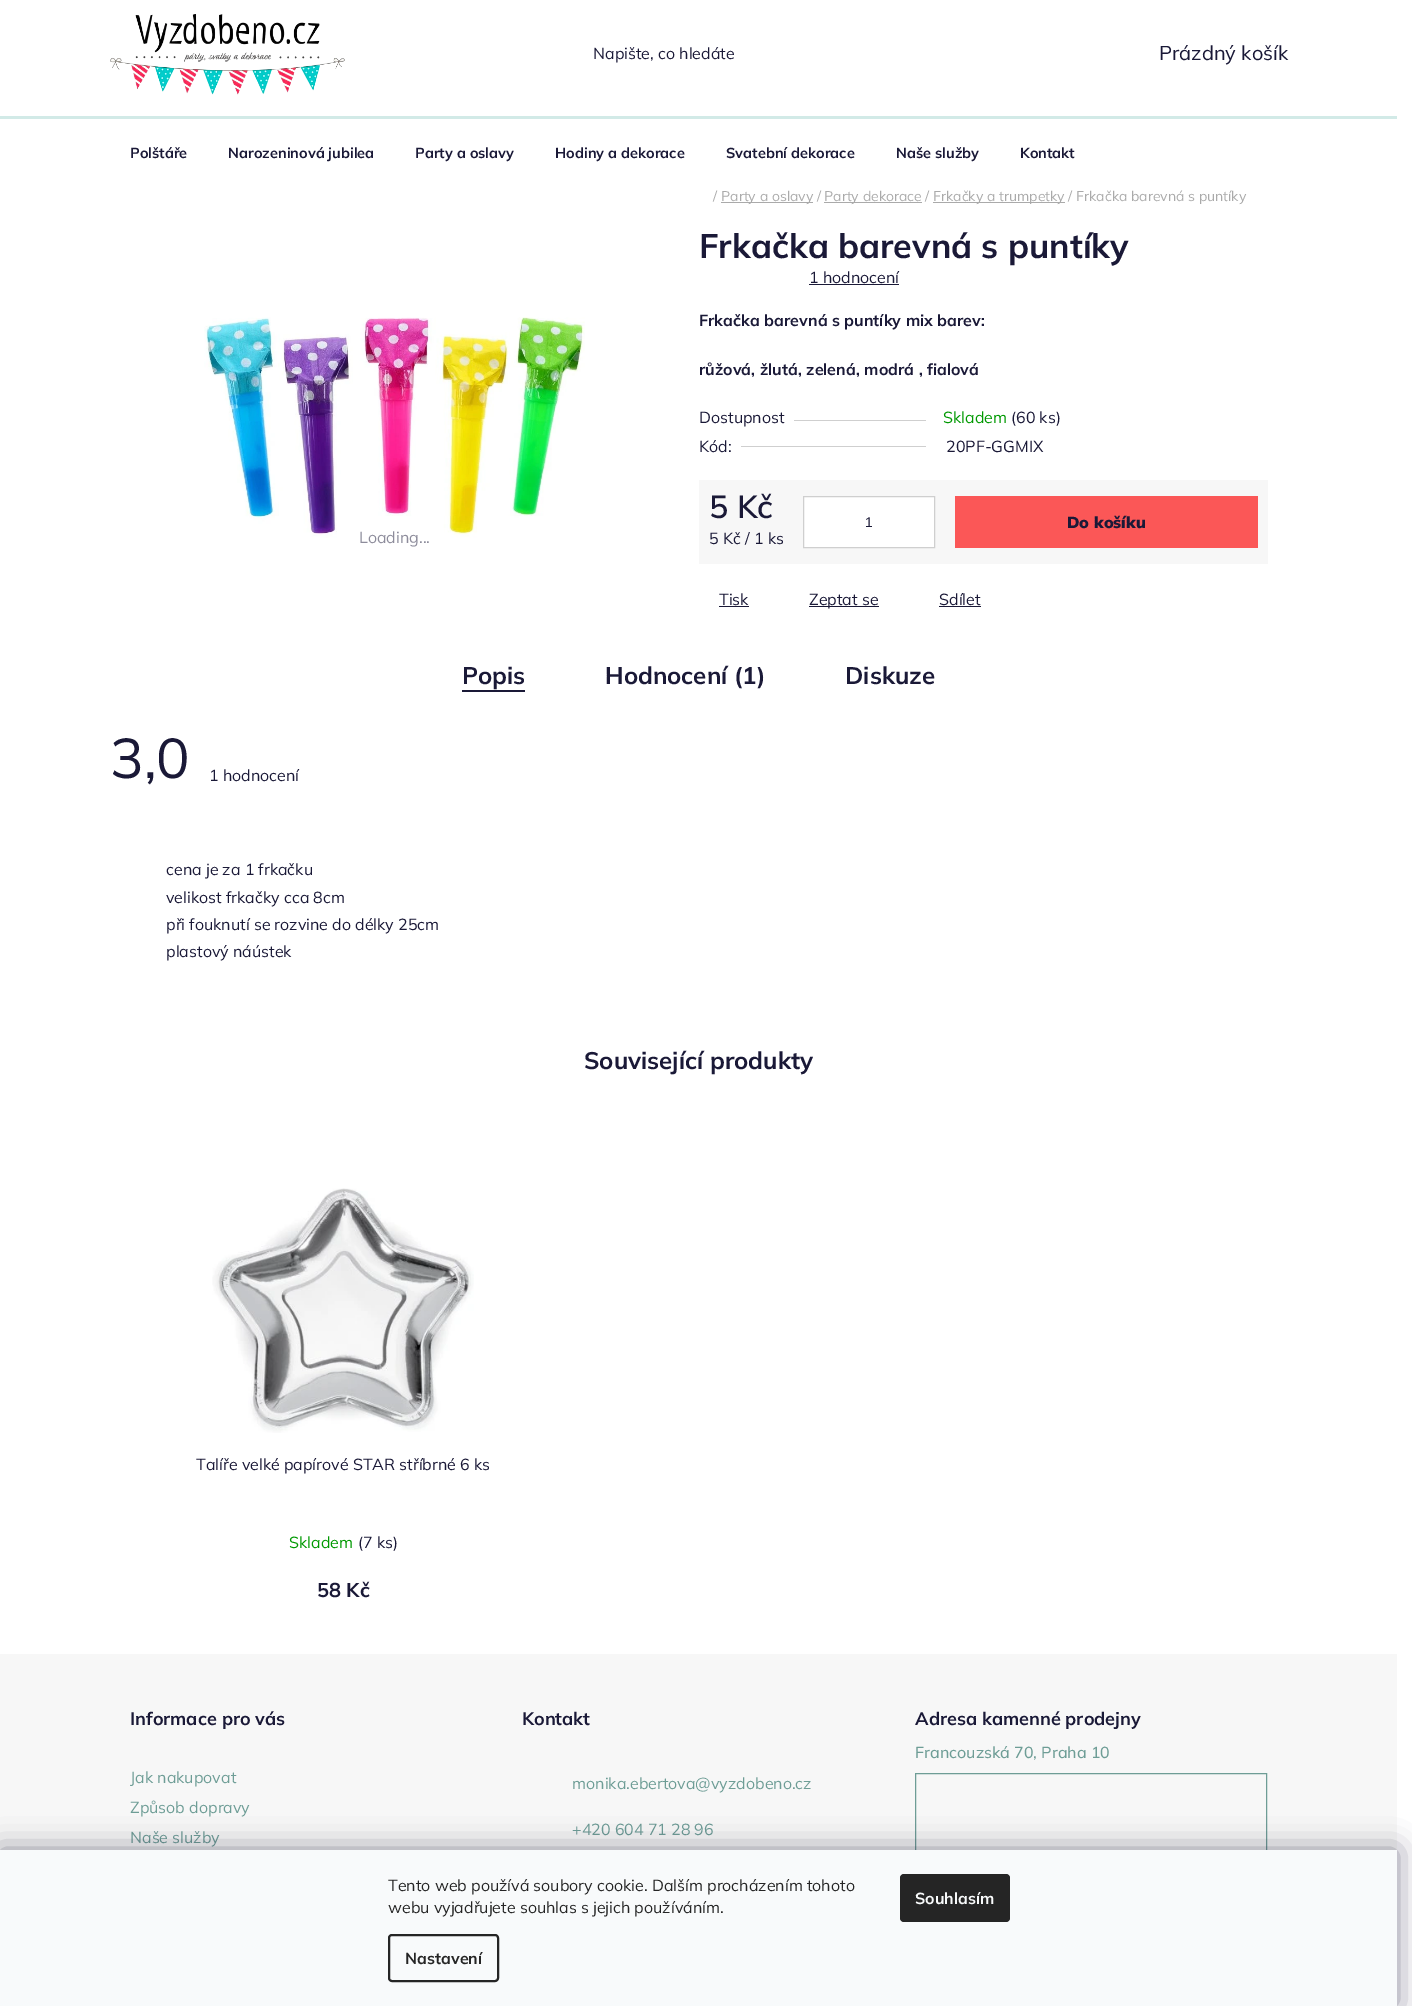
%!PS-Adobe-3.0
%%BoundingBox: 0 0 1412 2006
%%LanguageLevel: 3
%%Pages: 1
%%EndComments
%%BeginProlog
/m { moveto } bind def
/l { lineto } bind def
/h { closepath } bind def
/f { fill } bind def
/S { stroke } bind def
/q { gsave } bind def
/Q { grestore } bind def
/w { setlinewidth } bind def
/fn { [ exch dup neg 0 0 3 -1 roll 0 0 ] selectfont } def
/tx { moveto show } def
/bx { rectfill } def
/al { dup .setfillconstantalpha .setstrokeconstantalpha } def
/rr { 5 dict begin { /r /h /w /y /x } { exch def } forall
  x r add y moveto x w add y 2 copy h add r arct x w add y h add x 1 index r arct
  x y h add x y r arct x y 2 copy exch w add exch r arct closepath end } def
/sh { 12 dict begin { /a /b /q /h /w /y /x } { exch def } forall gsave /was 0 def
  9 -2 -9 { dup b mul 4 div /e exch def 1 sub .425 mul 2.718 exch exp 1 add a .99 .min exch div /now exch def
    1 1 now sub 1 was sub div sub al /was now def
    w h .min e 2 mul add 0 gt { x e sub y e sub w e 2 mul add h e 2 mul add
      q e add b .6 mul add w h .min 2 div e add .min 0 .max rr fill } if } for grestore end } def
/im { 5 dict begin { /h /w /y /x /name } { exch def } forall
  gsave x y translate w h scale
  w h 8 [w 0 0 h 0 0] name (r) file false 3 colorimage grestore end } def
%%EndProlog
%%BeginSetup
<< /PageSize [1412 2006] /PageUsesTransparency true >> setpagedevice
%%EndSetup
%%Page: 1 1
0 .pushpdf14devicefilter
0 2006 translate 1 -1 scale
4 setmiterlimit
1 setgray
0 0 1412 2006 bx
(image0.raw) 110 14 235 81 im
/Mulish-Regular 16 fn
0.102 0.098 0.216 setrgbcolor
(Napište, co hledáte) 593 59 tx
/Mulish-Regular 20 fn
(Prázdný košík) 1159 60 tx
0.824 0.918 0.906 setrgbcolor
0 116 1397 3 bx
/Mulish-Bold 14.5 fn
0.102 0.098 0.216 setrgbcolor
(Polštáře) 130 158 tx
(Narozeninová jubilea) 228 158 tx
(Party a oslavy) 415 158 tx
(Hodiny a dekorace) 555 158 tx
(Svatební dekorace) 726 158 tx
(Naše služby) 896 158 tx
(Kontakt) 1020 158 tx
/Mulish-Regular 14 fn
0.667 setgray
(/) 713 201 tx
721 202 92 1 bx
(Party a oslavy /) 721 201 tx
824 202 98 1 bx
(Party dekorace /) 824 201 tx
933 202 132 1 bx
(Frkačky a trumpetky / Frkačka barevná s puntíky) 933 201 tx
(image1.raw) 204 317 381 221 im
/Mulish-Regular 16 fn
0.553 0.549 0.608 setrgbcolor
(Loading...) 359 543 tx
/Mulish-Bold 34 fn
0.102 0.098 0.216 setrgbcolor
(Frkačka barevná s puntíky) 699 258 tx
/Mulish-Regular 16 fn
(1 hodnocení) 809 283 tx
809 284 90 1 bx
/Mulish-Bold 16 fn
(Frkačka barevná s puntíky mix barev:) 699 326 tx
(růžová, žlutá, zelená, modrá , fialová) 699 375 tx
/Mulish-Regular 16 fn
(Dostupnost) 699 423 tx
0.812 setgray
794 420 132 1 bx
0 0.6 0.004 setrgbcolor
(Skladem) 943 423 tx
0.102 0.098 0.216 setrgbcolor
(\(60 ks\)) 1011 423 tx
(Kód:) 699 452 tx
0.812 setgray
741 446 185 1 bx
0.102 0.098 0.216 setrgbcolor
(20PF-GGMIX) 946 452 tx
0.969 setgray
699 480 569 84 bx
/Mulish-SemiBold 32 fn
0.102 0.098 0.216 setrgbcolor
(5 Kč) 709 518 tx
/Mulish-Regular 16 fn
(5 Kč / 1 ks) 709 544 tx
1 setgray
803.5 496.5 m 934.5 496.5 l 934.5 547.5 l 803.5 547.5 l h q f Q
0.812 setgray
S
/LiberationSans-Regular 14 fn
0.102 0.098 0.216 setrgbcolor
(1) 865 527 tx
0.984 0.341 0.341 setrgbcolor
955 496 303 52 bx
/Mulish-Black 16 fn
0.102 0.098 0.216 setrgbcolor
(Do košíku) 1067 528 tx
/Mulish-Regular 16 fn
(Tisk) 719 605 tx
719 606 30 1 bx
809 606 70 1 bx
(Zeptat se) 809 605 tx
(Sdílet) 939 605 tx
939 606 42 1 bx
/Mulish-Bold 24 fn
(Popis) 462 684 tx
462 690 63 2 bx
(Hodnocení \(1\)) 605 684 tx
(Diskuze) 845 684 tx
/Mulish-Regular 56 fn
(3,0) 110 778 tx
/Mulish-Regular 16 fn
(1 hodnocení) 209 781 tx
(cena je za 1 frkačku) 166 875 tx
(velikost frkačky cca 8cm) 166 903 tx
(při fouknutí se rozvine do délky 25cm) 166 930 tx
(plastový náústek) 166 957 tx
/Mulish-Bold 24 fn
(Související produkty) 584 1069 tx
(image2.raw) 212 1188 262 245 im
/Mulish-Regular 16 fn
(Talíře velké papírové STAR stříbrné 6 ks) 196 1470 tx
0 0.6 0.004 setrgbcolor
(Skladem) 289 1548 tx
0.102 0.098 0.216 setrgbcolor
(\(7 ks\)) 358 1548 tx
/Mulish-Bold 20 fn
(58 Kč) 317 1597 tx
0.969 setgray
0 1654 1397 196 bx
/Mulish-Bold 18 fn
0.102 0.098 0.216 setrgbcolor
(Informace pro vás) 130 1725 tx
/Mulish-Regular 16 fn
0.431 0.616 0.588 setrgbcolor
(Jak nakupovat) 130 1783 tx
(Způsob dopravy) 130 1813 tx
(Naše služby) 130 1843 tx
/Mulish-Bold 18 fn
0.102 0.098 0.216 setrgbcolor
(Kontakt) 522 1725 tx
/Mulish-Regular 16 fn
0.431 0.616 0.588 setrgbcolor
(monika.ebertova@vyzdobeno.cz) 572 1789 tx
(+420 604 71 28 96) 572 1835 tx
/Mulish-Bold 18 fn
0.102 0.098 0.216 setrgbcolor
(Adresa kamenné prodejny) 915 1725 tx
/Mulish-Medium 16 fn
0.431 0.616 0.588 setrgbcolor
(Francouzská 70, Praha 10) 915 1758 tx
915.5 1773.5 351 139 rectstroke
0.106 0.098 0.224 setrgbcolor
0 1850 1397 156 0 15 0.5 sh
0.973 0.98 0.984 setrgbcolor
0 1850 1397 156 bx
/Mulish-Regular 16 fn
0.145 setgray
(Tento web používá soubory cookie. Dalším procházením tohoto) 388 1891 tx
(webu vyjadřujete souhlas s jejich používáním.) 388 1913 tx
2 w
389 1935 109 46 3 rr S
/Mulish-Bold 16 fn
(Nastavení) 405 1964 tx
900 1874 110 48 4 rr f
0.973 0.98 0.984 setrgbcolor
(Souhlasím) 915 1904 tx
.poppdf14devicefilter showpage
%%EOF
